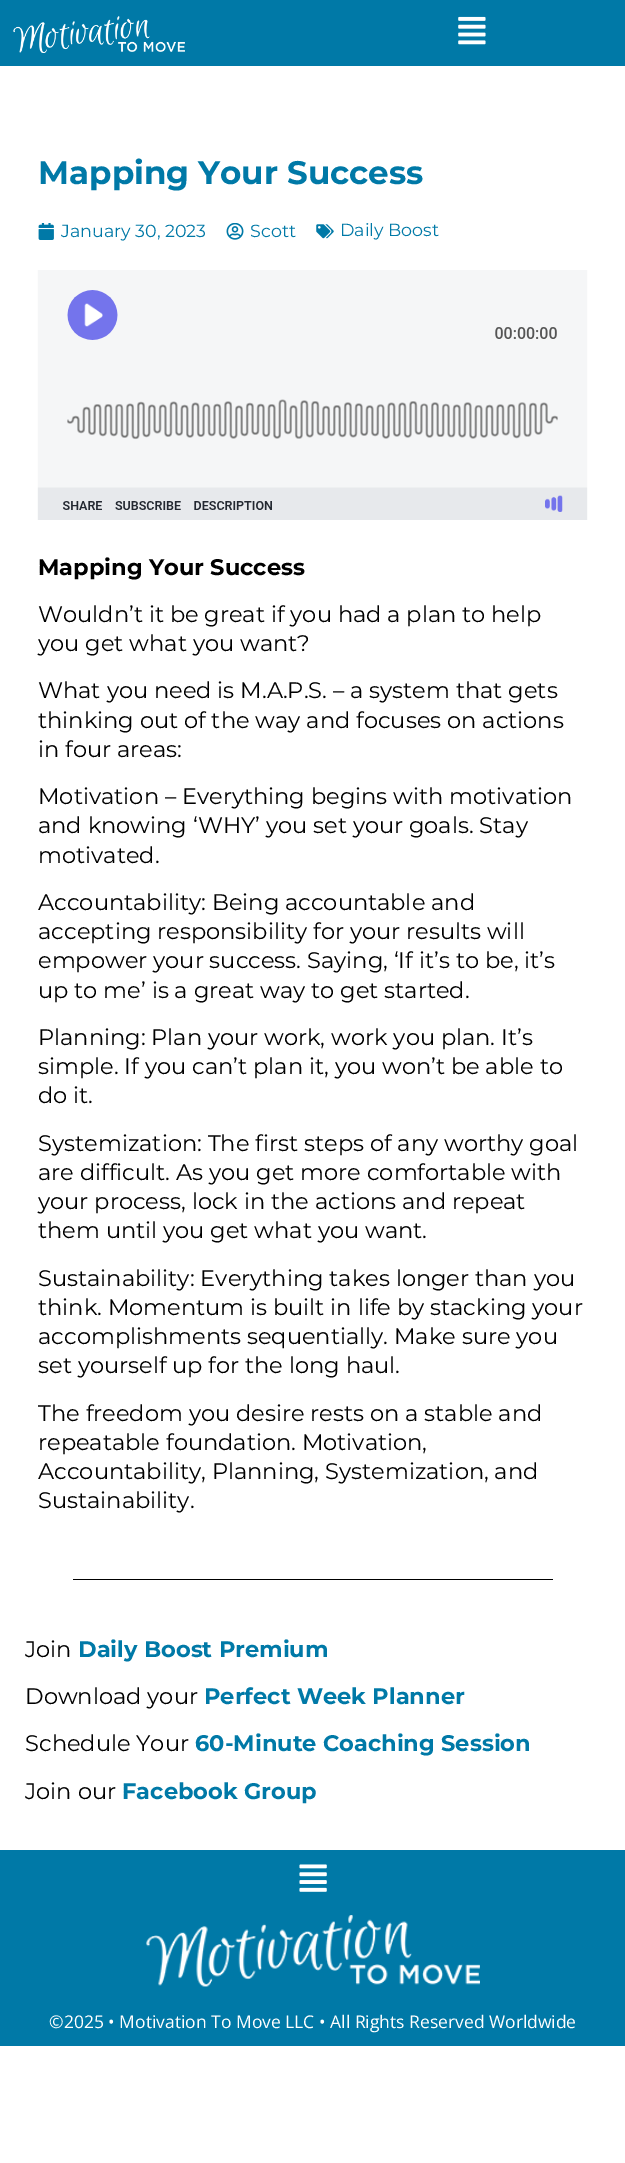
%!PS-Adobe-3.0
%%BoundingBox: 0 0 625 2163
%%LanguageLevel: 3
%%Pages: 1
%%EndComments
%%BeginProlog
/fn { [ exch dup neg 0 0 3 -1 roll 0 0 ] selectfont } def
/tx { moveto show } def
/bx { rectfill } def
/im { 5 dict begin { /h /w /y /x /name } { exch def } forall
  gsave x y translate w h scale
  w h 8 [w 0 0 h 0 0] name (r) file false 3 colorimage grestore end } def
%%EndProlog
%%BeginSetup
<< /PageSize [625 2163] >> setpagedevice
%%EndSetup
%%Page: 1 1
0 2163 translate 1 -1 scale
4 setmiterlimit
1 setgray
0 0 625 2163 bx
0 0.475 0.655 setrgbcolor
0 0 625 66 bx
(image0.raw) 13 16 172 37 im
(image1.raw) 458 16 28 29 im
/Montserrat-Bold 32.5 fn
(Mapping Your Success) 38 184 tx
(image2.raw) 38 223 16 17 im
/Montserrat-Regular 17.5 fn
(January 30, 2023) 61 237 tx
(image3.raw) 226 223 18 17 im
(Scott) 250 237 tx
(image4.raw) 316 224 18 15 im
(Daily Boost) 340 236 tx
(image5.raw) 37 270 551 250 im
/Montserrat-Bold 22.5 fn
0 setgray
(Mapping Your Success) 38 575 tx
/Montserrat-Regular 22.5 fn
(Wouldn’t it be great if you had a plan to help) 38 622 tx
(you get what you want?) 38 651 tx
(What you need is M.A.P.S. – a system that gets) 38 698 tx
(thinking out of the way and focuses on actions) 38 728 tx
(in four areas:) 38 757 tx
(Motivation – Everything begins with motivation) 38 804 tx
(and knowing ‘WHY’ you set your goals. Stay) 38 833 tx
(motivated.) 38 863 tx
(Accountability: Being accountable and) 38 910 tx
(accepting responsibility for your results will) 38 939 tx
(empower your success. Saying, ‘If it’s to be, it’s) 38 968 tx
(up to me’ is a great way to get started.) 38 998 tx
(Planning: Plan your work, work you plan. It’s) 38 1045 tx
(simple. If you can’t plan it, you won’t be able to) 38 1074 tx
(do it.) 38 1103 tx
(Systemization: The first steps of any worthy goal) 38 1151 tx
(are difficult. As you get more comfortable with) 38 1180 tx
(your process, lock in the actions and repeat) 38 1209 tx
(them until you get what you want.) 38 1238 tx
(Sustainability: Everything takes longer than you) 38 1286 tx
(think. Momentum is built in life by stacking your) 38 1315 tx
(accomplishments sequentially. Make sure you) 38 1344 tx
(set yourself up for the long haul.) 38 1373 tx
(The freedom you desire rests on a stable and) 38 1421 tx
(repeatable foundation. Motivation,) 38 1450 tx
(Accountability, Planning, Systemization, and) 38 1479 tx
(Sustainability.) 38 1508 tx
73 1579 480 1 bx
(Join) 25 1657 tx
/Montserrat-Bold 22.5 fn
0 0.475 0.655 setrgbcolor
(Daily Boost Premium) 78 1657 tx
/Montserrat-Regular 22.5 fn
0 setgray
(Download your) 25 1704 tx
/Montserrat-Bold 22.5 fn
0 0.475 0.655 setrgbcolor
(Perfect Week Planner) 204 1704 tx
/Montserrat-Regular 22.5 fn
0 setgray
(Schedule Your) 25 1751 tx
/Montserrat-Bold 22.5 fn
0 0.475 0.655 setrgbcolor
(60-Minute Coaching Session) 195 1751 tx
/Montserrat-Regular 22.5 fn
0 setgray
(Join our) 25 1799 tx
/Montserrat-Bold 22.5 fn
0 0.475 0.655 setrgbcolor
(Facebook Group) 122 1799 tx
0 1850 625 196 bx
(image6.raw) 299 1864 28 28 im
(image7.raw) 146 1915 334 72 im
/OpenSans-Regular 17.5 fn
1 setgray
(©2025 • Motivation To Move LLC • All Rights Reserved Worldwide) 49 2028 tx
showpage
%%EOF
